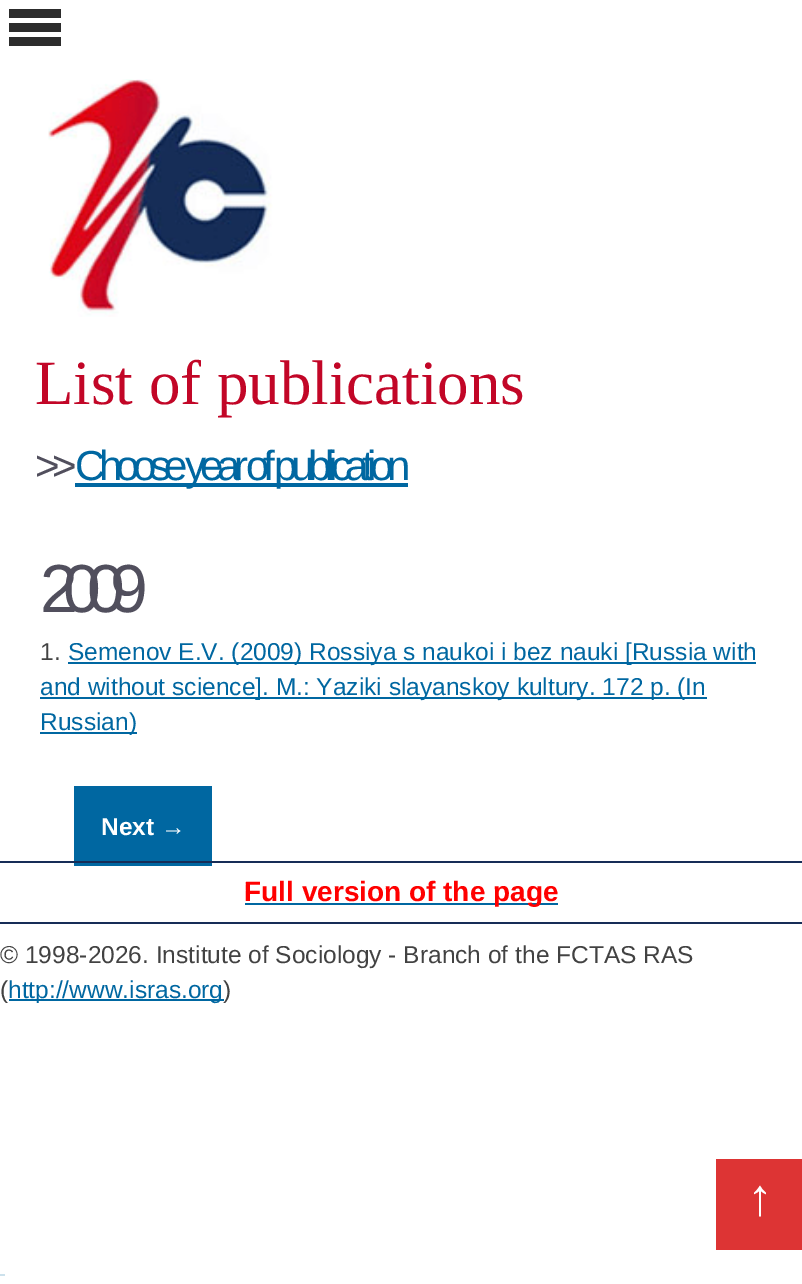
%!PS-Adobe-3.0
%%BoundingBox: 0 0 802 1284
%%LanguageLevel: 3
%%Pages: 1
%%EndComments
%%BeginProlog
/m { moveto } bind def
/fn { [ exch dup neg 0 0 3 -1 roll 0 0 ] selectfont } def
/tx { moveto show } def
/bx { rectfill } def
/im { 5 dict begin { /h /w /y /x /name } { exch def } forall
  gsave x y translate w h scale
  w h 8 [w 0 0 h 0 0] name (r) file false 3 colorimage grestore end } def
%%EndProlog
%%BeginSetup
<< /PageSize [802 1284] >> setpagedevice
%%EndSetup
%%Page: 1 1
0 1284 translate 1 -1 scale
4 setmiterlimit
1 setgray
0 0 802 1284 bx
0.173 setgray
9 9 52 9 bx
9 37 52 9 bx
9 23 52 9 bx
(image0.raw) 48 79 225 238 im
/LiberationSerif-Regular 63 fn
0.761 0.024 0.153 setrgbcolor
(List of publications) 35 404 tx
/LiberationSans-Regular 42 fn
0.318 0.31 0.365 setrgbcolor
35 480 m -8 0 (>>) ashow
0 0.404 0.631 setrgbcolor
75 483 333 4 bx
75 480 m -6.4 0 (Choose) ashow
185 480 m -6.4 0 (year of publication) ashow
/LiberationSans-Regular 68 fn
0.318 0.31 0.365 setrgbcolor
40 612 m -14.5 0 (2009) ashow
/LiberationSans-Regular 24.5 fn
0.259 setgray
(1.) 40 660 tx
0 0.404 0.631 setrgbcolor
68 662 688 2 bx
(Semenov E.V. \(2009\) Rossiya s naukoi i bez nauki [Russia with) 68 660 tx
40 697 667 2 bx
(and without science]. M.: Yaziki slayanskoy kultury. 172 p. \(In) 40 695 tx
40 732 97 2 bx
(Russian\)) 40 730 tx
74 786 138 80 bx
/LiberationSans-Bold 24.5 fn
1 setgray
(Next →) 101 835 tx
0.086 0.176 0.341 setrgbcolor
0 861 802 2 bx
0 0.404 0.631 setrgbcolor
245 903 313 2 bx
/LiberationSans-Bold 28 fn
1 0 0 setrgbcolor
(Full version of the page) 244 901 tx
0.086 0.176 0.341 setrgbcolor
0 922 802 2 bx
/LiberationSans-Regular 24.5 fn
0.259 setgray
(© 1998-2026. Institute of Sociology - Branch of the FCTAS RAS) 0 963 tx
(\() 0 998 tx
0 0.404 0.631 setrgbcolor
9 999 215 2 bx
(http://www.isras.org) 8 998 tx
0.259 setgray
(\)) 223 998 tx
0.867 0.204 0.204 setrgbcolor
716 1159 86 91 bx
/LiberationSans-Regular 52 fn
1 setgray
(↑) 747 1215 tx
0.8 0.882 0.925 setrgbcolor
0 1274 5 2 bx
showpage
%%EOF
